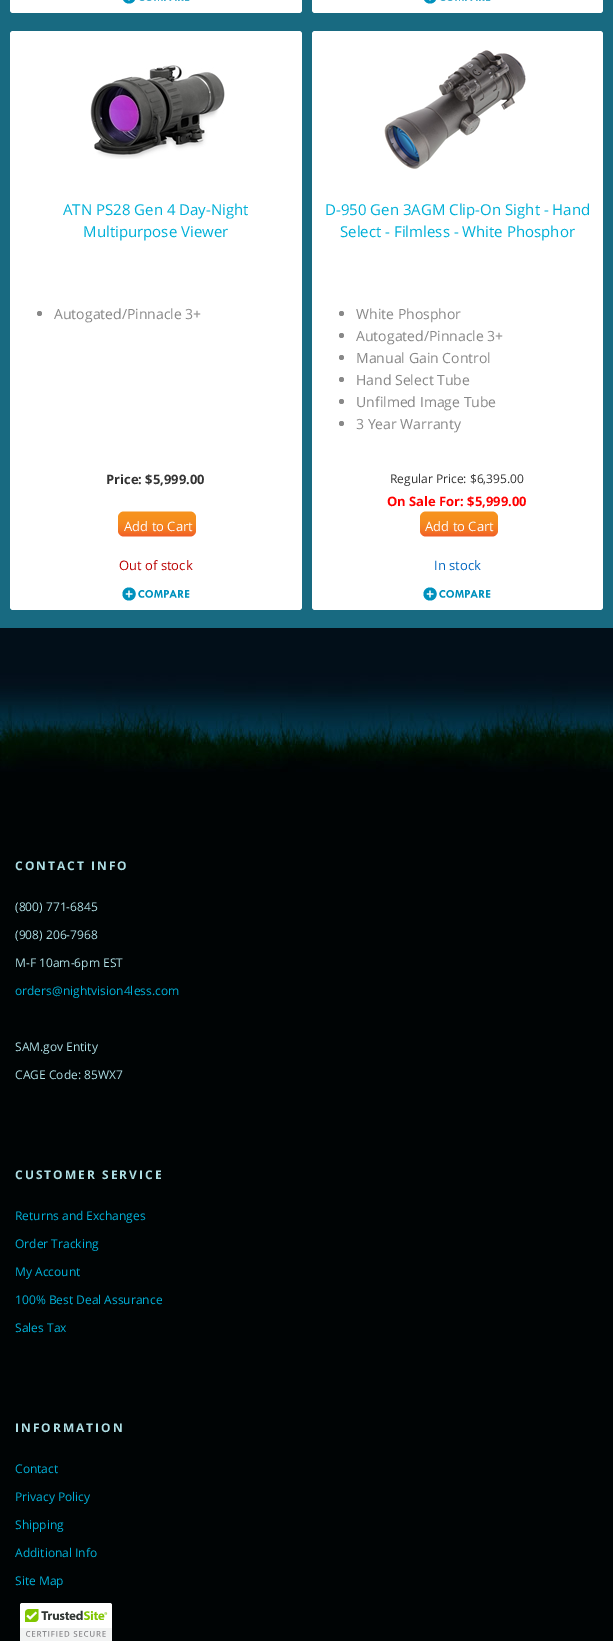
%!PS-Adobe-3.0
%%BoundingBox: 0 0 613 1641
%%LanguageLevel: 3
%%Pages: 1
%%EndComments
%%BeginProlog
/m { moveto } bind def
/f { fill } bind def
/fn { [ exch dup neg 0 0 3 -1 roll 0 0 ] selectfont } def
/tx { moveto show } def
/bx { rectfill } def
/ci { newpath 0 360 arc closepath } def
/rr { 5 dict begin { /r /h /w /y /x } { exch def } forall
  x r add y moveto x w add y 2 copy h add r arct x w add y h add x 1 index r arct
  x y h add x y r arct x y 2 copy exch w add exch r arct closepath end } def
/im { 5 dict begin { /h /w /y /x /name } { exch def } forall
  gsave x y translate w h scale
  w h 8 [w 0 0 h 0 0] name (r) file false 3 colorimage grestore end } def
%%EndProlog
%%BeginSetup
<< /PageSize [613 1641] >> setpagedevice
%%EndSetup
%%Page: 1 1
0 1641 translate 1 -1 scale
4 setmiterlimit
0.008 0.059 0.098 setrgbcolor
0 0 613 1641 bx
0.094 0.416 0.506 setrgbcolor
0 0 613 628 bx
1 setgray
10 -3 292 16 3 rr f
(image0.raw) 123 0 67 4 im
312 -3 291 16 3 rr f
(image0.raw) 424 0 67 4 im
10 31 292 579 3 rr f
(image1.raw) 90 65 135 94 im
/OpenSans-Regular 15 fn
0 0.69 0.847 setrgbcolor
(ATN PS28 Gen 4 Day-Night) 63 215 tx
(Multipurpose Viewer) 83 237 tx
0.533 setgray
39.5 313.5 2.5 ci f
/OpenSans-Regular 14 fn
(Autogated/Pinnacle 3+) 54 319 tx
/OpenSans-Bold 13 fn
0.2 setgray
(Price: $5,999.00) 106 484 tx
(image2.raw) 118 511 78 26 im
/OpenSans-Regular 13 fn
1 setgray
(Add to Cart) 124 531 tx
0.733 0 0 setrgbcolor
(Out of stock) 119 570 tx
(image3.raw) 122 587 68 14 im
1 setgray
312 31 291 579 3 rr f
(image4.raw) 384 50 142 119 im
/OpenSans-Regular 15 fn
0 0.69 0.847 setrgbcolor
(D-950 Gen 3AGM Clip-On Sight - Hand) 325 215 tx
(Select - Filmless - White Phosphor) 340 237 tx
0.533 setgray
341.5 313.5 2.5 ci f
/OpenSans-Regular 14 fn
(White Phosphor) 356 319 tx
341.5 335.5 2.5 ci f
(Autogated/Pinnacle 3+) 356 341 tx
341.5 357.5 2.5 ci f
(Manual Gain Control) 356 363 tx
341.5 379.5 2.5 ci f
(Hand Select Tube) 356 385 tx
341.5 401.5 2.5 ci f
(Unfilmed Image Tube) 356 407 tx
341.5 423.5 2.5 ci f
(3 Year Warranty) 356 429 tx
/OpenSans-Regular 12 fn
0.2 setgray
(Regular Price: $6,395.00) 390 483 tx
/OpenSans-Bold 13 fn
1 0 0 setrgbcolor
(On Sale For: $5,999.00) 387 506 tx
(image2.raw) 420 511 78 26 im
/OpenSans-Regular 13 fn
1 setgray
(Add to Cart) 425 531 tx
0 0.4 0.753 setrgbcolor
(In stock) 434 570 tx
(image3.raw) 423 587 68 14 im
0 0.016 0.02 setrgbcolor
0 772 613 869 bx
(image5.raw) 0 673 613 99 im
/OpenSans-Bold 12 fn
0.682 0.871 0.894 setrgbcolor
15 870 m 2 0 (CONTACT INFO) ashow
/OpenSans-Regular 12 fn
(\(800\) 771-6845) 15 911 tx
(\(908\) 206-7968) 15 939 tx
(M-F 10am-6pm EST) 15 967 tx
0 0.69 0.847 setrgbcolor
(orders@nightvision4less.com) 15 995 tx
0.682 0.871 0.894 setrgbcolor
(SAM.gov Entity) 15 1051 tx
(CAGE Code: 85WX7) 15 1079 tx
/OpenSans-Bold 12 fn
15 1179 m 2 0 (CUSTOMER SERVICE) ashow
/OpenSans-Regular 12 fn
0 0.69 0.847 setrgbcolor
(Returns and Exchanges) 15 1220 tx
(Order Tracking) 15 1248 tx
(My Account) 15 1276 tx
(100% Best Deal Assurance) 15 1304 tx
(Sales Tax) 15 1332 tx
/OpenSans-Bold 12 fn
0.682 0.871 0.894 setrgbcolor
15 1432 m 2 0 (INFORMATION) ashow
/OpenSans-Regular 12 fn
0 0.69 0.847 setrgbcolor
(Contact) 15 1473 tx
(Privacy Policy) 15 1501 tx
(Shipping) 15 1529 tx
(Additional Info) 15 1557 tx
(Site Map) 15 1585 tx
(image6.raw) 20 1603 92 38 im
showpage
%%EOF
